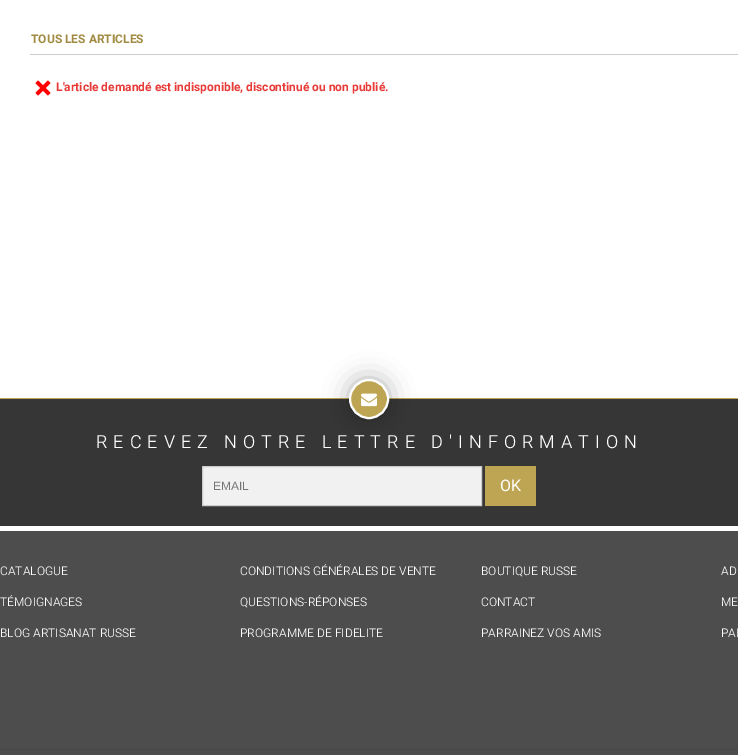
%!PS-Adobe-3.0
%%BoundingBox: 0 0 738 755
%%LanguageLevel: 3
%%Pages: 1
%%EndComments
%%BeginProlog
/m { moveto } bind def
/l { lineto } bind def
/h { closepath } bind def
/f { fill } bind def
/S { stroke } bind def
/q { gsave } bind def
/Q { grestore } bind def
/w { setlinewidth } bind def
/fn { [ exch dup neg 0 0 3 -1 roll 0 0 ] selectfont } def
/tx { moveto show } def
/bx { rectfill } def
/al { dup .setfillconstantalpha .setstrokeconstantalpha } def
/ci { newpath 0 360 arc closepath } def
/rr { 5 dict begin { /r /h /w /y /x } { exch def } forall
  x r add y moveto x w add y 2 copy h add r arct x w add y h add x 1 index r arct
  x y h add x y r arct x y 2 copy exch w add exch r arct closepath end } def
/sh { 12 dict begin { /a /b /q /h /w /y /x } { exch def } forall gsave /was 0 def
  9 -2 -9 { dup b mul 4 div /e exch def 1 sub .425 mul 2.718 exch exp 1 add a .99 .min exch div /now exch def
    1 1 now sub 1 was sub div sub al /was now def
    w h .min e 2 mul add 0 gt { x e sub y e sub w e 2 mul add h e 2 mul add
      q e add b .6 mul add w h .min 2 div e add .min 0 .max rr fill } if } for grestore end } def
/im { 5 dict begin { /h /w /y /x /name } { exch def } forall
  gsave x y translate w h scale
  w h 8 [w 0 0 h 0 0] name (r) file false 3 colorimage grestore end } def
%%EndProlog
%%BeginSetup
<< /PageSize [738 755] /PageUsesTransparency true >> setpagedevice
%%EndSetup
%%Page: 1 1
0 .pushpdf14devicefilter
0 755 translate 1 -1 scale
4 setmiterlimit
1 setgray
0 0 738 755 bx
0.8 setgray
30 54 708 1 bx
/Heebo-Bold 12 fn
0.635 0.549 0.267 setrgbcolor
(TOUS LES ARTICLES) 31 43 tx
(image0.raw) 35 80 16 16 im
0.906 0.231 0.22 setrgbcolor
(L'article demandé est indisponible, discontinué ou non publié.) 56 91 tx
0.302 setgray
0 531 738 224 bx
0.212 setgray
0 399 738 127 bx
0.745 0.647 0.325 setrgbcolor
0 398 738 1 bx
0 setgray
349 379 40 40 20 12.5 0.3 sh
0.745 0.647 0.325 setrgbcolor
369 399 19 ci q f Q
1 setgray
2 w
S
(image1.raw) 361 393 16 14 im
/Heebo-Light 18 fn
96 448 m 6 0 (RECEVEZ NOTRE LETTRE D'INFORMATION) ashow
0.945 setgray
202.5 466.5 m 481.5 466.5 l 481.5 505.5 l 202.5 505.5 l h q f Q
0.8 setgray
1 w
S
/LiberationSans-Regular 12 fn
0.459 setgray
(EMAIL) 213 490 tx
0.745 0.647 0.325 setrgbcolor
485 466 51 40 bx
/Heebo-Regular 16 fn
1 setgray
(OK) 500 491 tx
0.278 setgray
0 749 738 1 bx
/Heebo-Light 12 fn
1 setgray
(CATALOGUE) 0 575 tx
(CONDITIONS GÉNÉRALES DE VENTE) 240 575 tx
(BOUTIQUE RUSSE) 481 575 tx
(AD) 721 575 tx
(TÉMOIGNAGES) 0 606 tx
(QUESTIONS-RÉPONSES) 240 606 tx
(CONTACT) 481 606 tx
(ME) 721 606 tx
(BLOG ARTISANAT RUSSE) 0 637 tx
(PROGRAMME DE FIDELITE) 240 637 tx
(PARRAINEZ VOS AMIS) 481 637 tx
(PAI) 721 637 tx
.poppdf14devicefilter showpage
%%EOF
